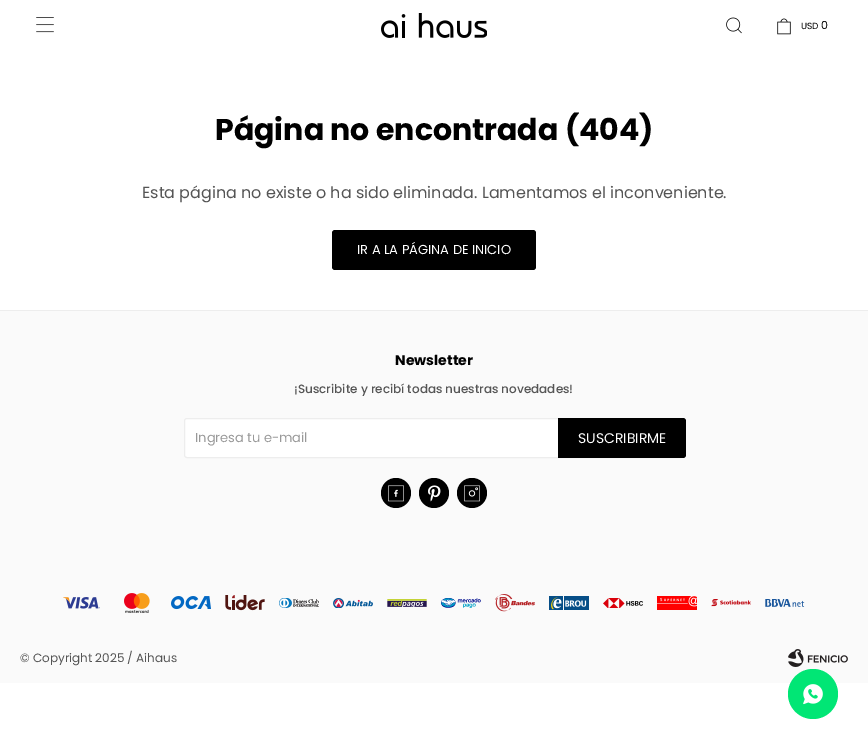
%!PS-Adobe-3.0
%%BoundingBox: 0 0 868 749
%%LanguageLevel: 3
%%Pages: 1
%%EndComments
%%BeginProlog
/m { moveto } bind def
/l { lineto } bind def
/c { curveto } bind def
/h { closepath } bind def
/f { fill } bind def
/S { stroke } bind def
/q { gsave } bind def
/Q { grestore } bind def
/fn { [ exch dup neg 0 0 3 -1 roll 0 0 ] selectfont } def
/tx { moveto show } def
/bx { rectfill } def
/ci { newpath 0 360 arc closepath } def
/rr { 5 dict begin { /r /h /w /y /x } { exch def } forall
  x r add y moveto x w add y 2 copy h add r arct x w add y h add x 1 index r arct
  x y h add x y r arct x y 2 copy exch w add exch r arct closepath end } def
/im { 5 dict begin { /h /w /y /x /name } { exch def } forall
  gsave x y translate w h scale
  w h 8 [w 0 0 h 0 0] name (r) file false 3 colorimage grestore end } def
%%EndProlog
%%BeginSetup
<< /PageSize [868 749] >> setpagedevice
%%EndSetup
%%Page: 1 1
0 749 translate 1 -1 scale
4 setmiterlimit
1 setgray
0 0 868 749 bx
(image0.raw) 36 17 18 16 im
(image1.raw) 381 13 106 25 im
(image2.raw) 726 17 16 17 im
(image3.raw) 777 18 14 17 im
/Poppins-Regular 9 fn
0 setgray
(USD) 801 29 tx
/Poppins-Regular 11 fn
(0) 821 29 tx
/Poppins-Bold 30 fn
(Página no encontrada \(404\)) 215 140 tx
/Poppins-Regular 16 fn
0.333 setgray
(Esta página no existe o ha sido eliminada. Lamentamos el inconveniente.) 142 198 tx
0 setgray
332 230 204 40 3 rr f
/Poppins-Regular 13 fn
1 setgray
(IR A LA PÁGINA DE INICIO) 357 254 tx
0.98 setgray
0 311 868 372 bx
0.929 setgray
0 310 868 1 bx
/Poppins-Bold 14 fn
0 setgray
(Newsletter) 395 365 tx
/Poppins-Medium 12 fn
0.333 setgray
(¡Suscribite y recibí todas nuestras novedades!) 294 393 tx
1 setgray
184.5 418.5 499 39 2.5 rr q f Q
0.929 setgray
S
/Poppins-Regular 13 fn
0.6 setgray
(Ingresa tu e-mail) 195 442 tx
0 setgray
558 418 m 683 418 l 684.5 418 686 419.5 686 421 c 686 455 l 686 456.5 684.5 458 683 458 c 558 458 l h f
/Poppins-Regular 14 fn
1 setgray
(SUSCRIBIRME) 578 443 tx
0 setgray
396 493 15 ci f
(image4.raw) 388 485 16 17 im
434 493 15 ci f
(image5.raw) 428 485 13 17 im
472 493 15 ci f
(image6.raw) 464 485 16 17 im
(image7.raw) 63 597 37 12 im
(image8.raw) 124 593 26 20 im
(image9.raw) 171 596 40 14 im
(image10.raw) 225 595 40 16 im
(image11.raw) 279 598 40 10 im
(image12.raw) 333 598 40 10 im
(image13.raw) 387 599 40 8 im
(image14.raw) 441 598 40 10 im
(image15.raw) 495 594 40 18 im
(image16.raw) 549 596 40 14 im
(image17.raw) 603 598 40 10 im
(image18.raw) 657 596 40 14 im
(image19.raw) 711 599 40 8 im
(image20.raw) 765 599 40 8 im
/Poppins-Regular 12 fn
0.333 setgray
(© Copyright 2025 / Aihaus) 20 662 tx
(image21.raw) 788 649 60 18 im
0.004 0.902 0.459 setrgbcolor
813 694 25 ci f
(image22.raw) 803 684 20 21 im
showpage
%%EOF
